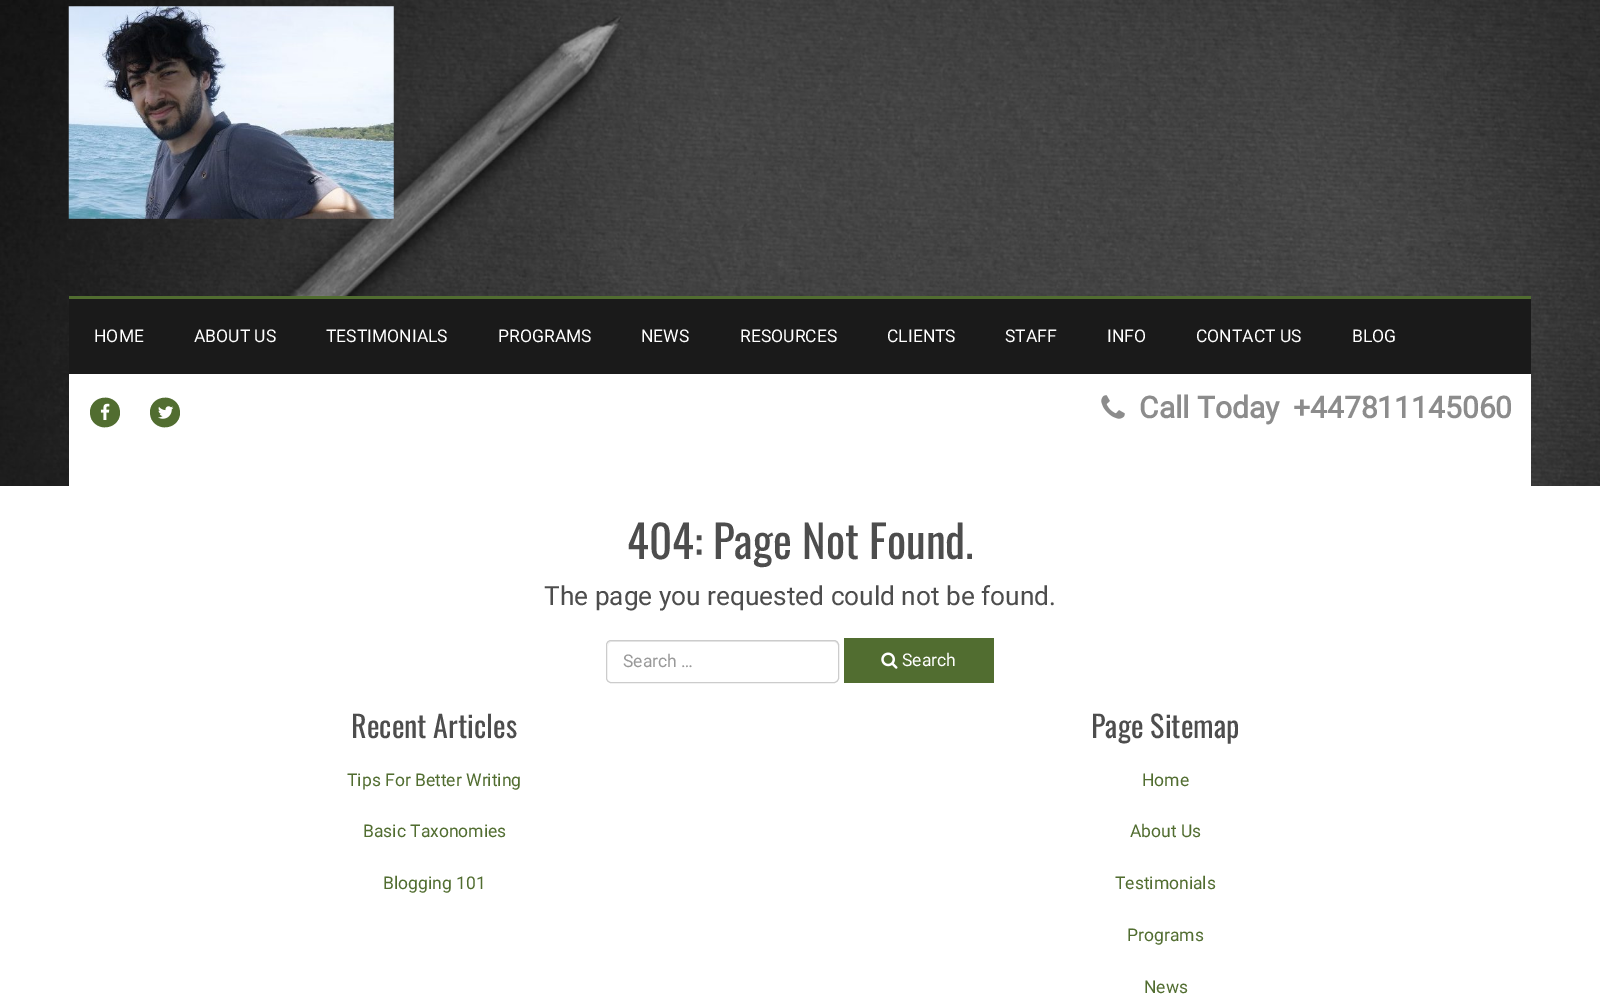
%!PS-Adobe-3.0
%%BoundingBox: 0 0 1600 995
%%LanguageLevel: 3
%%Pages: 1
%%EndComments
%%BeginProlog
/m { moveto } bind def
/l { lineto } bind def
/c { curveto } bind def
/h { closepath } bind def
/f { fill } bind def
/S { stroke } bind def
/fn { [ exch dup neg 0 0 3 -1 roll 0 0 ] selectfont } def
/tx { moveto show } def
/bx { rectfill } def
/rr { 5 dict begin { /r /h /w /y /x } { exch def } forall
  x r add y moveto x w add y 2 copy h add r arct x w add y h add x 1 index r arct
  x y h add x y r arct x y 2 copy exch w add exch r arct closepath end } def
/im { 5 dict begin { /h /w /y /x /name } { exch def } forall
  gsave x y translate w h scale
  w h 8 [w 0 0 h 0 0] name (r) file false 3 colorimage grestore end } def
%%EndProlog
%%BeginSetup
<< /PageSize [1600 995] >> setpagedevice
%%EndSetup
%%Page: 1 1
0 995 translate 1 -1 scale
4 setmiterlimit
1 setgray
0 0 1600 995 bx
(image0.raw) 0 0 1600 486 im
(image1.raw) 68 6 326 213 im
0.102 setgray
69 299 1462 75 bx
0.318 0.427 0.188 setrgbcolor
69 296 1462 3 bx
/Roboto-Regular 17.5 fn
1 setgray
(HOME) 94 342 tx
(ABOUT US) 194 342 tx
(TESTIMONIALS) 326 342 tx
(PROGRAMS) 498 342 tx
(NEWS) 641 342 tx
(RESOURCES) 740 342 tx
(CLIENTS) 887 342 tx
(STAFF) 1005 342 tx
(INFO) 1107 342 tx
(CONTACT US) 1196 342 tx
(BLOG) 1352 342 tx
69 374 1462 112 bx
0.318 0.427 0.188 setrgbcolor
118 405 m 119.5 407.5 120 410.5 120 413.5 c 119 428 99.5 432.5 92 420 c 90.5 417.5 90 414.5 90 411.5 c 91 397 110.5 392.5 118 405 c h f
(image2.raw) 100 403 10 17 im
178 405 m 179.5 407.5 180 410.5 180 413.5 c 179 428 159.5 432.5 152 420 c 150.5 417.5 150 414.5 150 411.5 c 151 397 170.5 392.5 178 405 c h f
(image3.raw) 158 406 16 13 im
(image4.raw) 1101 395 24 24 im
/Roboto-Bold 30 fn
0.549 setgray
(Call Today) 1139 418 tx
(+447811145060) 1293 418 tx
/Oswald-Regular 45 fn
0.302 setgray
(404: Page Not Found.) 627 559 tx
/Roboto-Regular 26.25 fn
(The page you requested could not be found.) 544 605 tx
0.925 setgray
611 642 m 834 642 l 836 642 838 644 838 646 c 838 643 837 641 834 641 c 612 641 l 609 641 608 643 608 646 c 608 644 609 642 611 642 c h f
0.8 setgray
606.5 640.5 232 42 4.5 rr S
/Roboto-Regular 17.5 fn
0.6 setgray
(Search …) 623 667 tx
0.318 0.427 0.188 setrgbcolor
844 638 150 45 bx
(image5.raw) 881 652 17 17 im
1 setgray
(Search) 902 666 tx
/Oswald-Regular 30 fn
0.302 setgray
(Recent Articles) 351 738 tx
/Roboto-Regular 17.5 fn
0.318 0.427 0.188 setrgbcolor
(Tips For Better Writing) 347 786 tx
(Basic Taxonomies) 363 837 tx
(Blogging 101) 383 889 tx
/Oswald-Regular 30 fn
0.302 setgray
(Page Sitemap) 1091 738 tx
/Roboto-Regular 17.5 fn
0.318 0.427 0.188 setrgbcolor
(Home) 1142 786 tx
(About Us) 1130 837 tx
(Testimonials) 1115 889 tx
(Programs) 1127 941 tx
(News) 1144 993 tx
showpage
%%EOF
